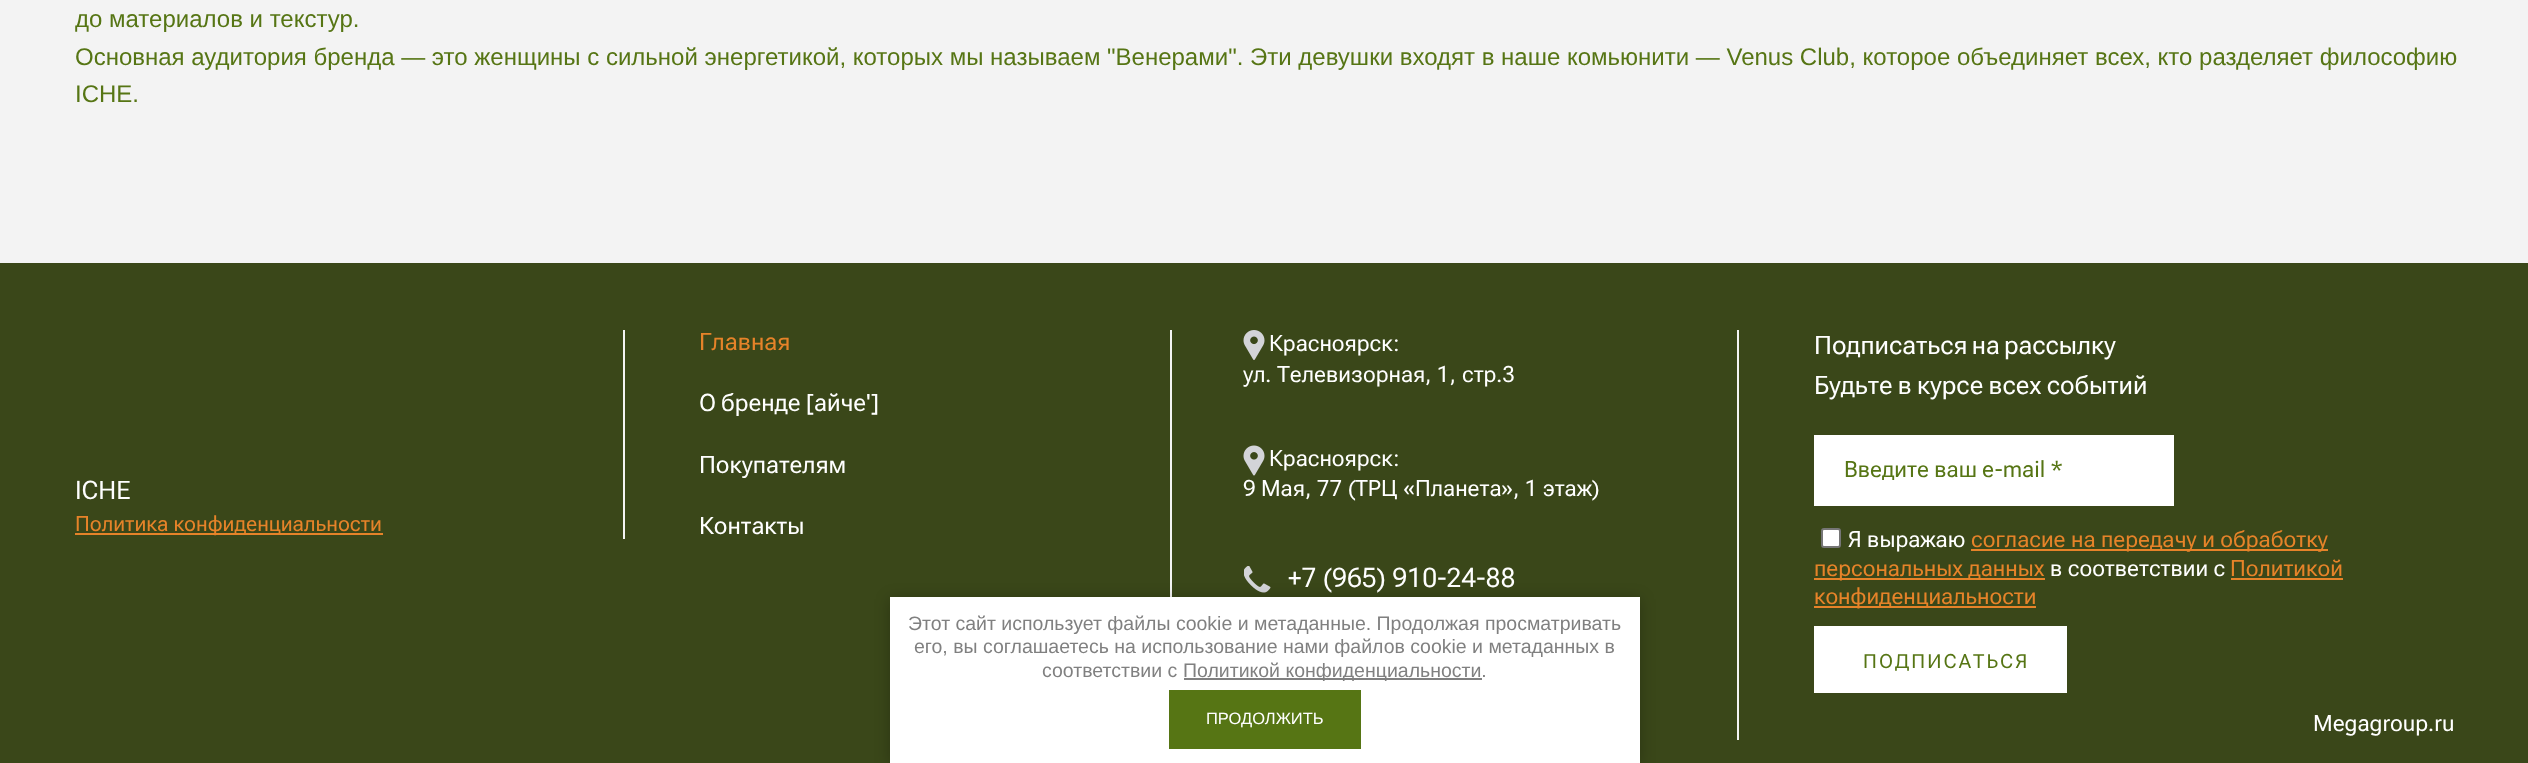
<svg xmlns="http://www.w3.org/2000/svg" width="2528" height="763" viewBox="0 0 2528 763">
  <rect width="100%" height="100%" fill="rgb(243,243,243)"/>
  <g font-family="Liberation Sans" font-size="24" fill="rgb(86,117,20)">
    <text>
      <tspan x="75" y="27">до материалов и текстур.</tspan>
      <tspan x="75" y="65">Основная аудитория бренда — это женщины с сильной энергетикой, которых мы называем "Венерами". Эти девушки входят в наше комьюнити — Venus Club, которое объединяет всех, кто разделяет философию</tspan>
      <tspan x="75" y="102">ICHE.</tspan>
    </text>
  </g>
  <rect x="0" y="263" width="2528" height="500" fill="rgb(58,71,25)"/>
  <text x="75" y="499" font-family="Roboto Flex" font-size="25.5" fill="rgb(255,255,255)">ICHE</text>
  <rect x="75" y="533" width="308" height="2" fill="rgb(230,131,41)"/>
  <text x="75" y="531" font-family="'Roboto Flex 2'" font-size="21" fill="rgb(230,131,41)">Политика конфиденциальности</text>
  <rect x="623" y="330" width="2" height="209" fill="rgb(243,243,243)"/>
  <text x="699" y="350" font-family="'Roboto Flex 2'" font-size="24" fill="rgb(230,131,41)">Главная</text>
  <text x="699" y="411" word-spacing="-1" font-family="'Roboto Flex 2'" font-size="24" fill="rgb(255,255,255)">О бренде</text>
  <text x="806" y="411" font-family="'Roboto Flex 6'" font-size="24" fill="rgb(255,255,255)">[</text>
  <text x="814" y="411" font-family="'Roboto Flex 2'" font-size="24" fill="rgb(255,255,255)">айче</text>
  <text x="866" y="411" font-family="'Roboto Flex 6'" font-size="24" fill="rgb(255,255,255)">']</text>
  <g font-family="'Roboto Flex 2'" font-size="24" fill="rgb(255,255,255)">
    <text x="699" y="473">Покупателям</text>
    <text x="699" y="534">Контакты</text>
  </g>
  <rect x="1170" y="330" width="2" height="267" fill="rgb(243,243,243)"/>
  <image x="1243" y="330" width="22" height="30" href="pic1.png"/>
  <text x="1269" y="351" font-family="'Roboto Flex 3'" font-size="22.5" fill="rgb(255,255,255)">Красноярск</text>
  <text x="1393" y="351" font-family="'Roboto Flex 2'" font-size="22.5" fill="rgb(255,255,255)">:</text>
  <text x="1243" y="382" font-family="'Roboto Flex 3'" font-size="22.5" fill="rgb(255,255,255)">ул</text>
  <text x="1265" y="382" font-family="'Roboto Flex 2'" font-size="22.5" fill="rgb(255,255,255)">.</text>
  <text x="1277" y="382" font-family="'Roboto Flex 3'" font-size="22.5" fill="rgb(255,255,255)">Телевизорная</text>
  <text x="1425" y="382" font-family="'Roboto Flex 2'" font-size="22.5" fill="rgb(255,255,255)">, 1,</text>
  <text x="1462" y="382" font-family="'Roboto Flex 3'" font-size="22.5" fill="rgb(255,255,255)">стр</text>
  <text x="1496" y="382" font-family="'Roboto Flex 2'" font-size="22.5" fill="rgb(255,255,255)">.3</text>
  <image x="1243" y="445" width="22" height="31" href="pic2.png"/>
  <text x="1269" y="466" font-family="'Roboto Flex 3'" font-size="22.5" fill="rgb(255,255,255)">Красноярск</text>
  <g font-family="'Roboto Flex 2'" font-size="22.5" fill="rgb(255,255,255)">
    <text x="1393" y="466">:</text>
    <text x="1243" y="496">9</text>
  </g>
  <text x="1261" y="496" font-family="'Roboto Flex 3'" font-size="22.5" fill="rgb(255,255,255)">Мая</text>
  <text x="1305" y="496" font-family="'Roboto Flex 2'" font-size="22.5" fill="rgb(255,255,255)">, 77 (</text>
  <text x="1355" y="496" font-family="'Roboto Flex 3'" font-size="22.5" fill="rgb(255,255,255)">ТРЦ</text>
  <text x="1403" y="496" font-family="'Roboto Flex 2'" font-size="22.5" fill="rgb(255,255,255)">«</text>
  <text x="1415" y="496" font-family="'Roboto Flex 3'" font-size="22.5" fill="rgb(255,255,255)">Планета</text>
  <text x="1501" y="496" font-family="'Roboto Flex 2'" font-size="22.5" fill="rgb(255,255,255)">», 1</text>
  <text x="1543" y="496" font-family="'Roboto Flex 3'" font-size="22.5" fill="rgb(255,255,255)">этаж</text>
  <text x="1592" y="496" font-family="'Roboto Flex 2'" font-size="22.5" fill="rgb(255,255,255)">)</text>
  <image x="1244" y="566" width="27" height="27" href="pic3.png"/>
  <text x="1288" y="587" font-family="'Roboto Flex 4'" font-size="27" fill="rgb(255,255,255)">+7 (965) 910-24-88</text>
  <rect x="1737" y="330" width="2" height="410" fill="rgb(243,243,243)"/>
  <g font-family="'Roboto Flex 2'" font-size="25.5" fill="rgb(255,255,255)">
    <text>
      <tspan x="1814" y="354" word-spacing="-2">Подписаться на рассылку</tspan>
      <tspan x="1814" y="394" word-spacing="-1">Будьте в курсе всех событий</tspan>
    </text>
  </g>
  <rect x="1814" y="435" width="360" height="71" fill="rgb(255,255,255)"/>
  <text x="1844" y="477" font-family="'Roboto Flex 3'" font-size="22.5" fill="rgb(86,117,20)">Введите ваш</text>
  <text x="1982" y="477" font-family="'Roboto Flex 2'" font-size="22.5" fill="rgb(86,117,20)">e-mail *</text>
  <rect x="1822" y="529" width="18" height="18" rx="2" fill="rgb(255,255,255)" stroke="rgb(118,118,118)" stroke-width="2"/>
  <text x="1848" y="547" font-family="'Roboto Flex 3'" font-size="22.5" fill="rgb(255,255,255)">Я выражаю</text>
  <rect x="1971" y="549" width="357" height="2" fill="rgb(230,131,41)"/>
  <text x="1971" y="547" font-family="'Roboto Flex 3'" font-size="22.5" fill="rgb(230,131,41)">согласие на передачу и обработку</text>
  <rect x="1814" y="578" width="231" height="2" fill="rgb(230,131,41)"/>
  <text x="1814" y="576" font-family="'Roboto Flex 3'" font-size="22.5" fill="rgb(230,131,41)">персональных данных</text>
  <text x="2050" y="576" font-family="'Roboto Flex 3'" font-size="22.5" fill="rgb(255,255,255)">в соответствии с</text>
  <text x="2230" y="576" font-family="'Roboto Flex 3'" font-size="22.5" fill="rgb(230,131,41)">Политикой</text>
  <rect x="2231" y="578" width="112" height="2" fill="rgb(230,131,41)"/>
  <rect x="1814" y="606" width="222" height="2" fill="rgb(230,131,41)"/>
  <text x="1814" y="604" font-family="'Roboto Flex 3'" font-size="22.5" fill="rgb(230,131,41)">конфиденциальности</text>
  <rect x="1814" y="626" width="253" height="67" fill="rgb(255,255,255)"/>
  <text x="1863" y="668" font-family="'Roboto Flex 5'" font-size="19.5" letter-spacing="2.1" fill="rgb(86,117,20)">ПОДПИСАТЬСЯ</text>
  <text x="2313" y="731" font-family="'Roboto Flex 2'" font-size="22.5" fill="rgb(255,255,255)">Megagroup.ru</text>
  <rect x="890" y="599" width="750" height="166" fill="rgba(0,0,0,0.25)" filter="blur(7.5px)"/>
  <rect x="890" y="597" width="750" height="166" fill="rgb(255,255,255)"/>
  <g font-family="Liberation Sans" font-size="19.5" fill="rgb(128,128,128)">
    <text x="908" y="630">Этот сайт использует файлы cookie и метаданные. Продолжая просматривать</text>
    <text x="914" y="653">его, вы соглашаетесь на использование нами файлов cookie и метаданных в</text>
    <text x="1042" y="677">соответствии с</text>
  </g>
  <rect x="1184" y="678" width="298" height="2" fill="rgb(128,128,128)"/>
  <text x="1183" y="677" font-family="Liberation Sans" font-size="19.5" fill="rgb(128,128,128)">Политикой конфиденциальности.</text>
  <rect x="1169" y="690" width="192" height="59" fill="rgb(86,117,20)"/>
  <text x="1206" y="724" font-family="Liberation Sans" font-size="16.5" fill="rgb(255,255,255)">ПРОДОЛЖИТЬ</text>
</svg>
